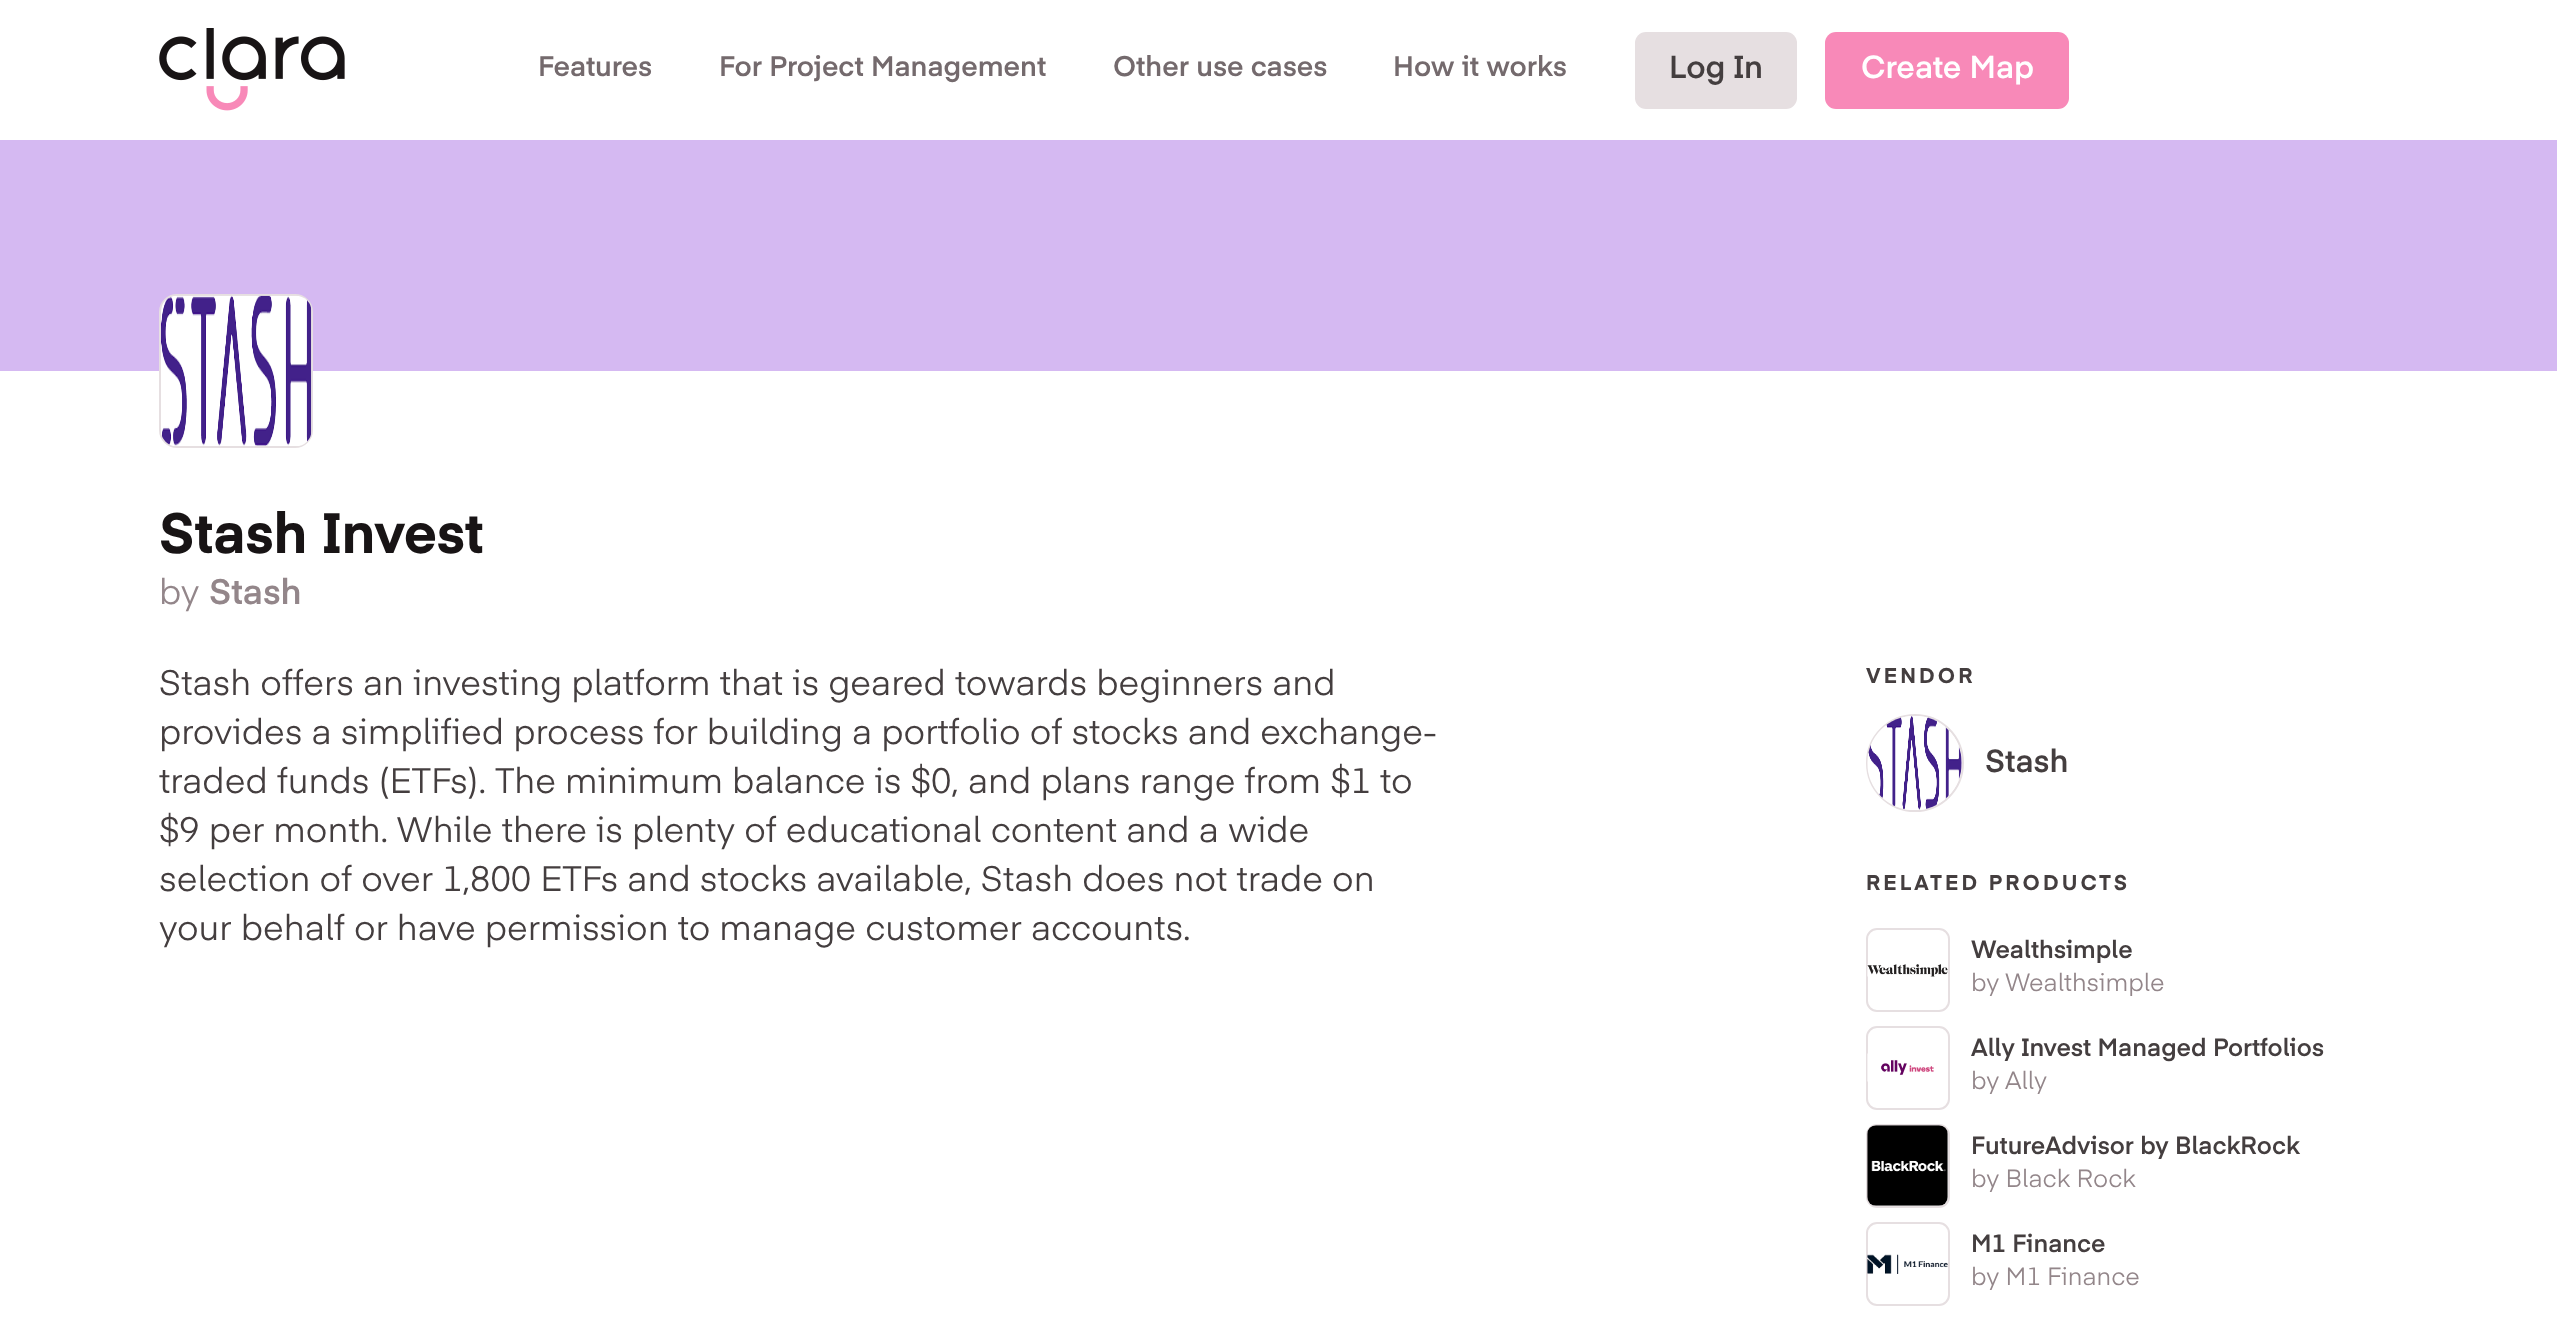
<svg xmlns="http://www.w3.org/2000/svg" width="2557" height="1319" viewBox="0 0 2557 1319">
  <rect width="100%" height="100%" fill="rgb(255,255,255)"/>
  <image x="159" y="28" width="186" height="83" href="pic1.png"/>
  <g font-family="'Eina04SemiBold'" font-size="28" font-weight="600" fill="rgb(116,106,109)">
    <text x="538" y="76">Features</text>
    <text x="719" y="76">For Project Management</text>
    <text x="1113" y="76">Other use cases</text>
    <text x="1393" y="76">How it works</text>
  </g>
  <rect x="1635" y="32" width="162" height="77" rx="11" fill="rgb(230,223,225)"/>
  <text x="1669" y="78" font-family="'Eina04SemiBold'" font-size="31.5" font-weight="600" fill="rgb(68,62,63)">Log In</text>
  <rect x="1825" y="32" width="244" height="77" rx="11" fill="rgb(248,137,184)"/>
  <text x="1861" y="78" font-family="'Eina04SemiBold'" font-size="31.5" font-weight="600" fill="rgb(255,255,255)">Create Map</text>
  <rect x="0" y="140" width="2557" height="231" fill="rgb(213,185,242)"/>
  <rect x="160" y="295" width="152" height="152" rx="17" fill="none" stroke="rgb(230,223,225)" stroke-width="2"/>
  <image x="161" y="295" width="151" height="151" href="pic2.png"/>
  <text x="159" y="553" font-family="'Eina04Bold'" font-size="56" font-weight="bold" fill="rgb(24,20,21)">Stash Invest</text>
  <text x="159" y="604" font-family="'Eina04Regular'" font-size="35" fill="rgb(147,134,138)">by</text>
  <text x="209" y="604" font-family="'Eina04SemiBold'" font-size="35" font-weight="600" fill="rgb(147,134,138)">Stash</text>
  <g font-family="'Eina04Regular'" font-size="35" fill="rgb(68,62,63)">
    <text>
      <tspan x="159" y="695">Stash offers an investing platform that is geared towards beginners and</tspan>
      <tspan x="159" y="744">provides a simplified process for building a portfolio of stocks and exchange-</tspan>
      <tspan x="159" y="793">traded funds (ETFs). The minimum balance is $0, and plans range from $1 to</tspan>
      <tspan x="159" y="842">$9 per month. While there is plenty of educational content and a wide</tspan>
      <tspan x="159" y="891">selection of over 1,800 ETFs and stocks available, Stash does not trade on</tspan>
      <tspan x="159" y="940">your behalf or have permission to manage customer accounts.</tspan>
    </text>
  </g>
  <text x="1866" y="683" font-family="'Eina04Bold'" font-size="21" font-weight="bold" letter-spacing="3.1" fill="rgb(68,62,63)">VENDOR</text>
  <circle cx="1915" cy="763" r="48" fill="none" stroke="rgb(230,223,225)" stroke-width="2"/>
  <image x="1867" y="716" width="95" height="94" href="pic3.png"/>
  <text x="1985" y="772" font-family="'Eina04SemiBold'" font-size="31.5" font-weight="600" fill="rgb(68,62,63)">Stash</text>
  <text x="1866" y="890" font-family="'Eina04Bold'" font-size="21" font-weight="bold" letter-spacing="3.1" fill="rgb(68,62,63)">RELATED PRODUCTS</text>
  <rect x="1867" y="929" width="82" height="82" rx="10" fill="none" stroke="rgb(230,223,225)" stroke-width="2"/>
  <image x="1867" y="964" width="81" height="13" href="pic4.png"/>
  <text x="1971" y="958" font-family="'Eina04SemiBold'" font-size="24.5" font-weight="600" fill="rgb(68,62,63)">Wealthsimple</text>
  <g font-family="'Eina04Regular'" font-size="24.5" fill="rgb(147,134,138)">
    <text x="1971" y="991">by</text>
    <text x="2005" y="991">Wealthsimple</text>
  </g>
  <rect x="1867" y="1027" width="82" height="82" rx="10" fill="none" stroke="rgb(230,223,225)" stroke-width="2"/>
  <image x="1867" y="1053" width="67" height="29" href="pic5.png"/>
  <text x="1971" y="1056" font-family="'Eina04SemiBold'" font-size="24.5" font-weight="600" fill="rgb(68,62,63)">Ally Invest Managed Portfolios</text>
  <g font-family="'Eina04Regular'" font-size="24.5" fill="rgb(147,134,138)">
    <text x="1971" y="1089">by</text>
    <text x="2005" y="1089">Ally</text>
  </g>
  <rect x="1867" y="1125" width="82" height="82" rx="10" fill="none" stroke="rgb(230,223,225)" stroke-width="2"/>
  <image x="1867" y="1125" width="81" height="81" href="pic6.png"/>
  <text x="1971" y="1154" font-family="'Eina04SemiBold'" font-size="24.5" font-weight="600" fill="rgb(68,62,63)">FutureAdvisor by BlackRock</text>
  <text x="1971" y="1187" font-family="'Eina04Regular'" font-size="24.5" fill="rgb(147,134,138)">by Black Rock</text>
  <rect x="1867" y="1223" width="82" height="82" rx="10" fill="none" stroke="rgb(230,223,225)" stroke-width="2"/>
  <image x="1867" y="1254" width="81" height="20" href="pic7.png"/>
  <text x="1971" y="1252" font-family="'Eina04SemiBold'" font-size="24.5" font-weight="600" fill="rgb(68,62,63)">M1 Finance</text>
  <text x="1971" y="1285" font-family="'Eina04Regular'" font-size="24.5" fill="rgb(147,134,138)">by M1 Finance</text>
</svg>
